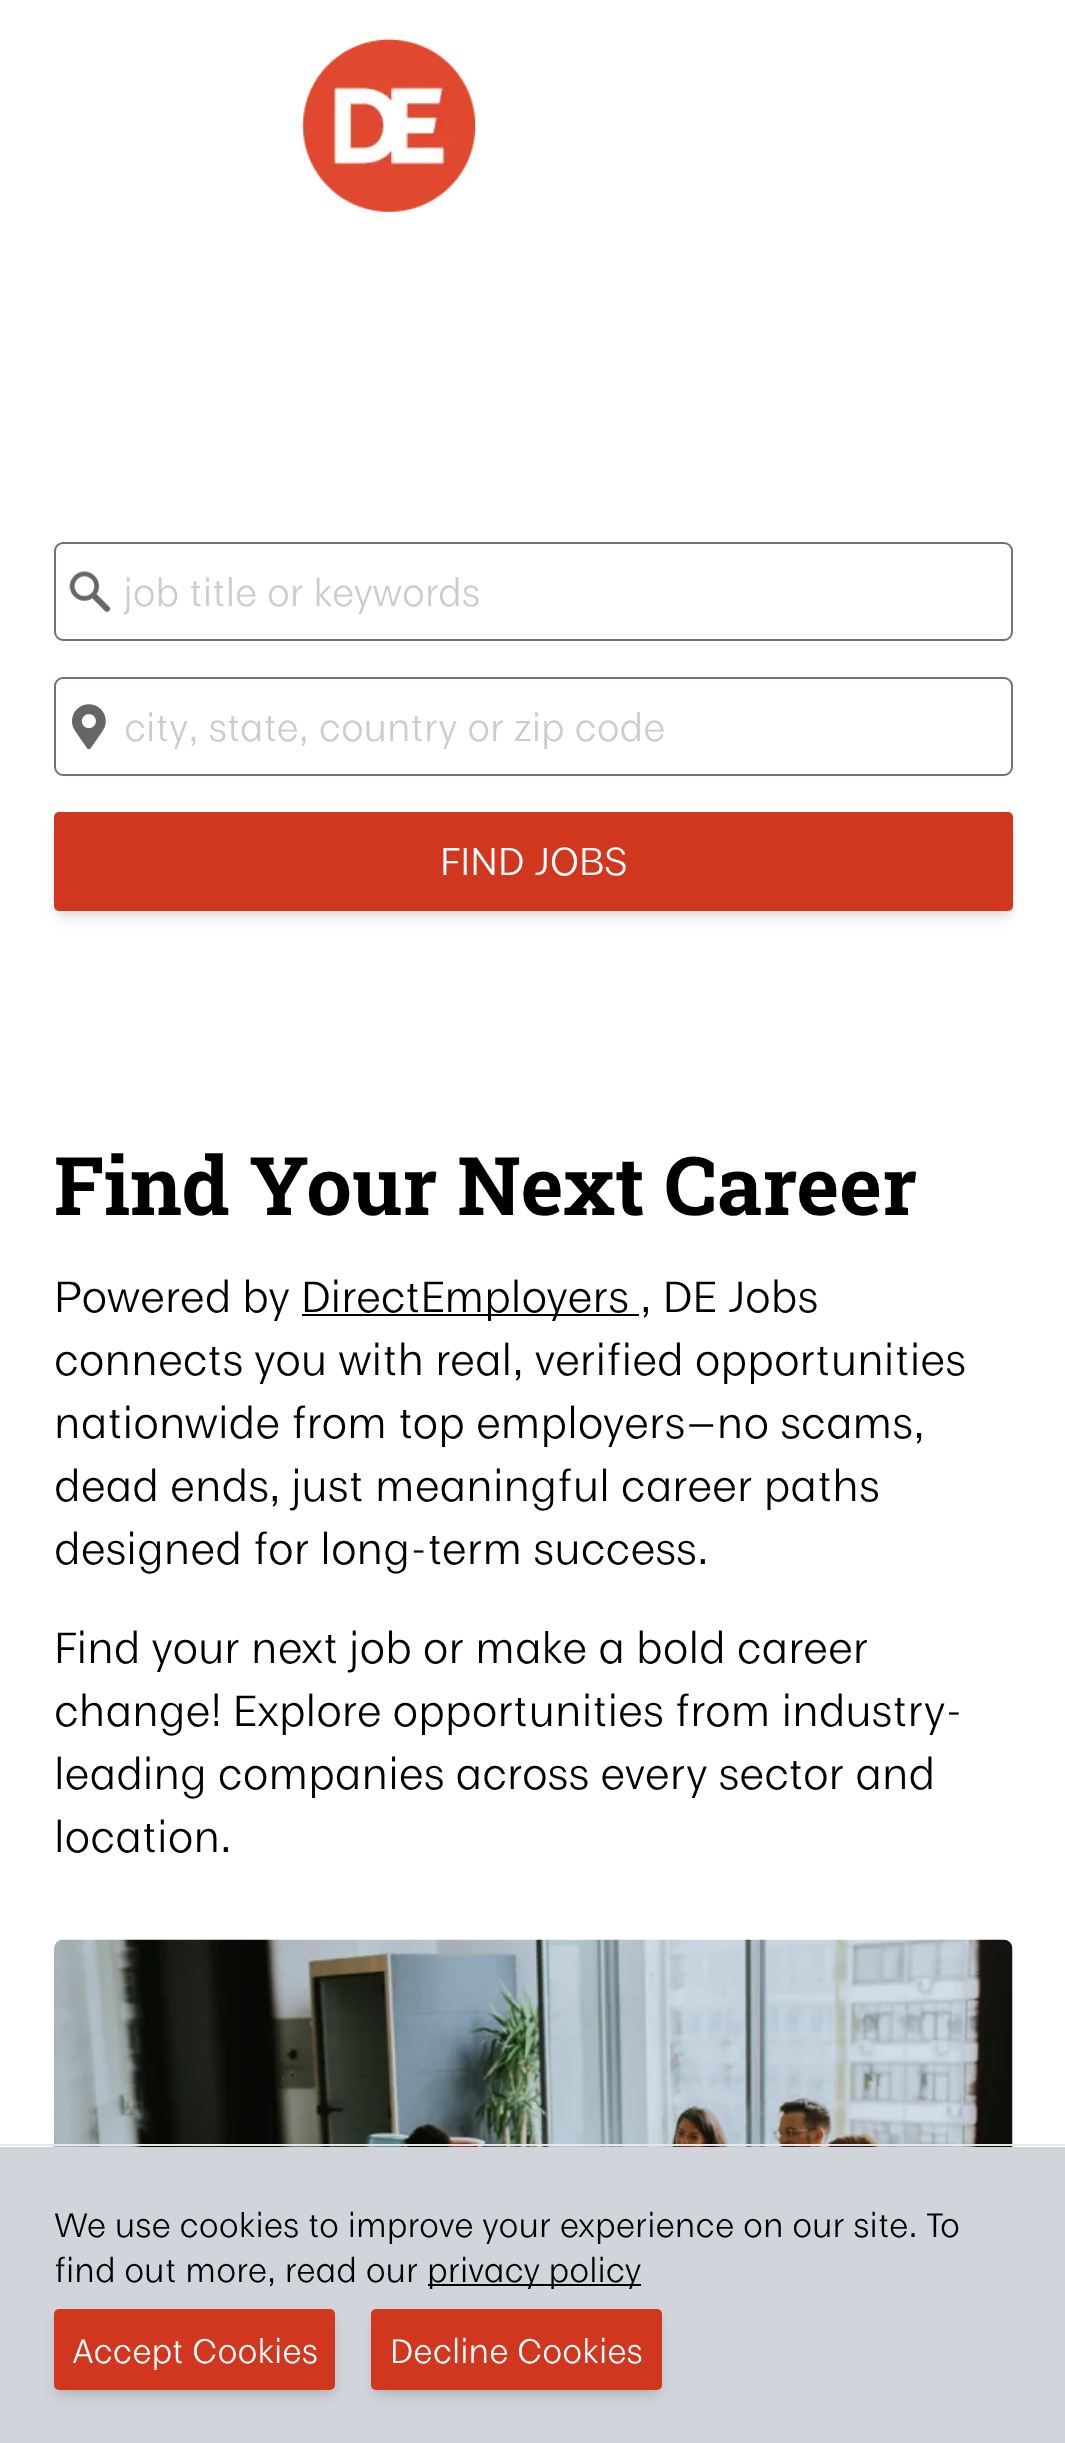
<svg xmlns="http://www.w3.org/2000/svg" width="1065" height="2443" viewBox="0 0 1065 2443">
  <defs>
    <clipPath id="clip1"><rect x="124" y="565" width="866" height="56"/></clipPath>
  </defs>
  <rect width="100%" height="100%" fill="rgb(255,255,255)"/>
  <image x="301" y="38" width="175" height="174" href="pic1.png"/>
  <image x="69" y="571" width="42" height="41" href="pic2.png"/>
  <rect x="55" y="543" width="957" height="97" rx="8" fill="none" stroke="rgb(107,114,128)" stroke-width="2"/>
  <g clip-path="url(#clip1)">
    <text x="124" y="606" font-family="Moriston" font-size="36" fill="rgb(204,204,204)">job title or keywords</text>
  </g>
  <rect x="55" y="678" width="957" height="97" rx="8" fill="none" stroke="rgb(107,114,128)" stroke-width="2"/>
  <image x="72" y="704" width="34" height="46" href="pic3.png"/>
  <text x="124" y="741" font-family="Moriston" font-size="36" fill="rgb(204,204,204)">city, state, country or zip code</text>
  <rect x="59" y="821" width="949" height="90" fill="rgba(0,0,0,0.1)" filter="blur(4.5px)"/>
  <rect x="56" y="824" width="954" height="94" rx="2" fill="rgba(0,0,0,0.1)" filter="blur(7px)"/>
  <rect x="54" y="812" width="959" height="99" rx="5" fill="rgb(209,54,30)"/>
  <text x="440" y="875" font-family="Moriston" font-size="36" fill="rgb(255,255,255)">FIND JOBS</text>
  <text x="54" y="1215" font-family="Roboto Slab" font-size="81" font-weight="bold" fill="rgb(0,0,0)">Find Your Next Career</text>
  <text x="54" y="1312" font-family="Moriston" font-size="40.5" fill="rgb(0,0,0)">Powered by</text>
  <rect x="302" y="1314" width="337" height="2" fill="rgb(0,0,0)"/>
  <g font-family="Moriston" font-size="40.5" fill="rgb(0,0,0)">
    <text x="301" y="1312">DirectEmployers , DE Jobs</text>
    <text>
      <tspan x="54" y="1375">connects you with real, verified opportunities</tspan>
      <tspan x="54" y="1438">nationwide from top employers—no scams,</tspan>
      <tspan x="54" y="1501">dead ends, just meaningful career paths</tspan>
      <tspan x="54" y="1564">designed for long-term success.</tspan>
    </text>
    <text>
      <tspan x="54" y="1663">Find your next job or make a bold career</tspan>
      <tspan x="54" y="1726">change! Explore opportunities from industry-</tspan>
      <tspan x="54" y="1789">leading companies across every sector and</tspan>
      <tspan x="54" y="1852">location.</tspan>
    </text>
  </g>
  <image x="54" y="1939" width="959" height="208" href="pic4.png"/>
  <rect x="0" y="2147" width="1065" height="296" fill="rgb(209,213,219)"/>
  <rect x="0" y="2144" width="1065" height="2" fill="rgb(229,231,235)"/>
  <g font-family="Moriston" font-size="31.5" fill="rgb(0,0,0)">
    <text>
      <tspan x="54" y="2237">We use cookies to improve your experience on our site. To</tspan>
      <tspan x="54" y="2282">find out more, read our</tspan>
    </text>
  </g>
  <rect x="428" y="2284" width="213" height="2" fill="rgb(0,0,0)"/>
  <text x="427" y="2282" font-family="Moriston" font-size="31.5" fill="rgb(0,0,0)">privacy policy</text>
  <rect x="59" y="2318" width="272" height="72" fill="rgba(0,0,0,0.1)" filter="blur(4.5px)"/>
  <rect x="56" y="2320" width="277" height="76" rx="2" fill="rgba(0,0,0,0.1)" filter="blur(7px)"/>
  <rect x="54" y="2309" width="281" height="81" rx="5" fill="rgb(209,54,30)"/>
  <text x="72" y="2363" font-family="Moriston" font-size="31.5" fill="rgb(255,255,255)">Accept Cookies</text>
  <rect x="376" y="2318" width="281" height="72" fill="rgba(0,0,0,0.1)" filter="blur(4.5px)"/>
  <rect x="374" y="2320" width="285" height="76" rx="2" fill="rgba(0,0,0,0.1)" filter="blur(7px)"/>
  <rect x="371" y="2309" width="291" height="81" rx="5" fill="rgb(209,54,30)"/>
  <text x="390" y="2363" font-family="Moriston" font-size="31.5" fill="rgb(255,255,255)">Decline Cookies</text>
</svg>
